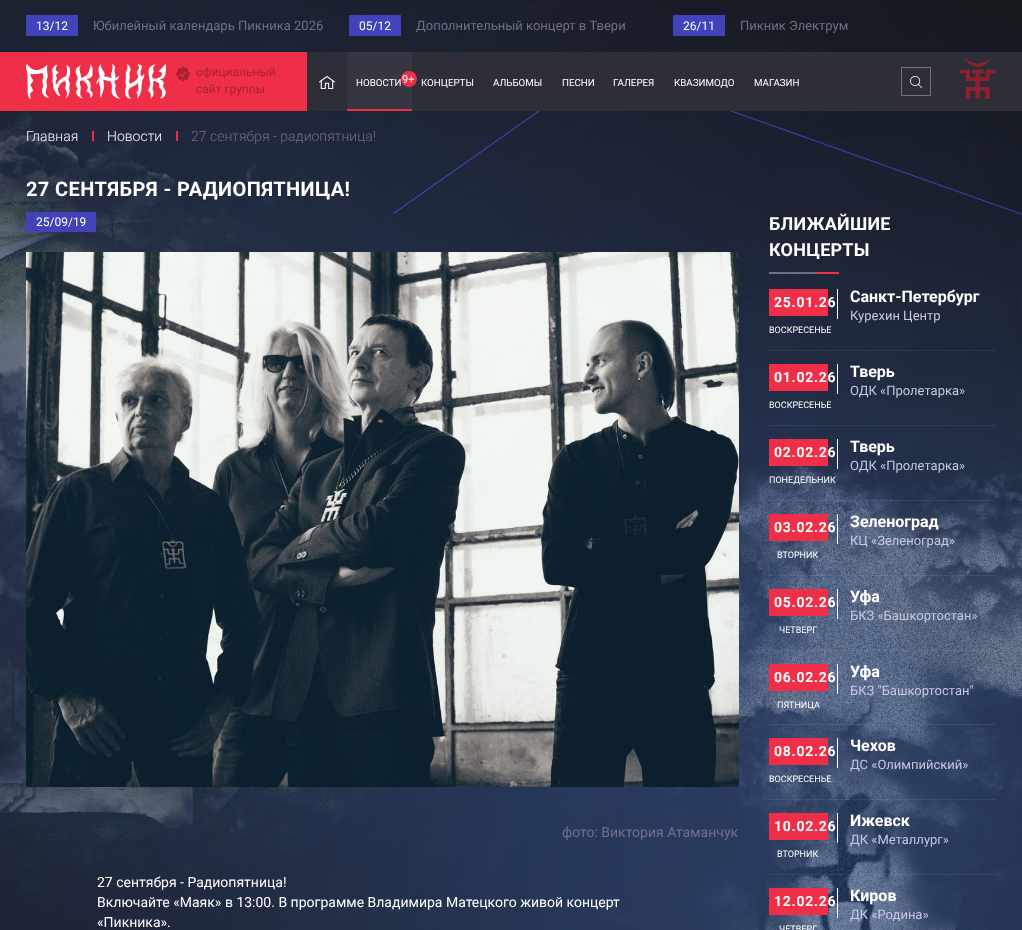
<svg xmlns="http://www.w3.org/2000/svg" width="1022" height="930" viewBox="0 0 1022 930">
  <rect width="100%" height="100%" fill="rgb(19,19,20)"/>
  <image x="0" y="0" width="1022" height="930" href="pic1.png"/>
  <rect x="26" y="15" width="52" height="21" fill="rgb(66,66,186)"/>
  <text x="36" y="30" font-family="Roboto" font-size="12" fill="rgb(255,255,255)">13/12</text>
  <text x="93" y="30" font-family="Roboto" font-size="13" fill="rgb(112,112,138)">Юбилейный календарь Пикника 2026</text>
  <rect x="349" y="15" width="52" height="21" fill="rgb(66,66,186)"/>
  <text x="359" y="30" font-family="Roboto" font-size="12" fill="rgb(255,255,255)">05/12</text>
  <text x="416" y="30" font-family="Roboto" font-size="13" fill="rgb(112,112,138)">Дополнительный концерт в Твери</text>
  <rect x="673" y="15" width="52" height="21" fill="rgb(66,66,186)"/>
  <text x="683" y="30" font-family="Roboto" font-size="12" fill="rgb(255,255,255)">26/11</text>
  <text x="740" y="30" font-family="Roboto" font-size="13" fill="rgb(112,112,138)">Пикник Электрум</text>
  <rect x="0" y="52" width="307" height="59" fill="rgb(239,47,72)"/>
  <rect x="307" y="52" width="715" height="59" fill="rgb(46,46,57)"/>
  <image x="26" y="64" width="140" height="35" href="pic2.png"/>
  <image x="176" y="67" width="14" height="14" href="pic3.png"/>
  <g font-family="Roboto" font-size="12" fill="rgb(168,34,52)">
    <text>
      <tspan x="196" y="76">официальный</tspan>
      <tspan x="196" y="93">сайт группы</tspan>
    </text>
  </g>
  <image x="319" y="76" width="16" height="13" href="pic4.png"/>
  <rect x="347" y="52" width="65" height="57" fill="rgb(54,54,66)"/>
  <rect x="347" y="109" width="65" height="2" fill="rgb(239,47,72)"/>
  <text x="356" y="86" font-family="Roboto" font-size="9.75" fill="rgb(255,255,255)">НОВОСТИ</text>
  <circle cx="409" cy="79" r="8" fill="rgb(239,47,72)"/>
  <text x="402" y="83" font-family="Roboto" font-size="11" fill="rgb(255,255,255)">9+</text>
  <g font-family="Roboto" font-size="9.75" fill="rgb(255,255,255)">
    <text x="421" y="86">КОНЦЕРТЫ</text>
    <text x="493" y="86">АЛЬБОМЫ</text>
    <text x="562" y="86">ПЕСНИ</text>
    <text x="613" y="86">ГАЛЕРЕЯ</text>
    <text x="674" y="86">КВАЗИМОДО</text>
    <text x="754" y="86">МАГАЗИН</text>
  </g>
  <image x="910" y="76" width="12" height="12" href="pic5.png"/>
  <rect x="901.5" y="67.5" width="29" height="28" fill="none" stroke="rgb(112,112,138)"/>
  <image x="960" y="58" width="36" height="41" href="pic6.png"/>
  <text x="26" y="141" font-family="Roboto" font-size="14" font-weight="300" fill="rgb(255,255,255)">Главная</text>
  <rect x="92" y="131" width="2" height="10" fill="rgb(239,47,72)"/>
  <text x="107" y="141" font-family="Roboto" font-size="14" font-weight="300" fill="rgb(255,255,255)">Новости</text>
  <rect x="176" y="131" width="2" height="10" fill="rgb(239,47,72)"/>
  <text x="191" y="141" font-family="Roboto" font-size="14" font-weight="300" fill="rgb(112,112,138)">27 сентября - радиопятница!</text>
  <text x="26" y="196" font-family="Roboto" font-size="20" font-weight="bold" letter-spacing="0.4" fill="rgb(255,255,255)">27 СЕНТЯБРЯ - РАДИОПЯТНИЦА!</text>
  <rect x="26" y="212" width="70" height="20" fill="rgb(66,66,186)"/>
  <text x="36" y="226" font-family="Roboto" font-size="12" fill="rgb(255,255,255)">25/09/19</text>
  <image x="26" y="252" width="713" height="535" href="pic7.png"/>
  <text x="562" y="837" font-family="Roboto" font-size="14" fill="rgb(112,112,138)">фото: Виктория Атаманчук</text>
  <g font-family="Roboto" font-size="14" fill="rgb(255,255,255)">
    <text>
      <tspan x="97" y="887">27 сентября - Радиопятница!</tspan>
      <tspan x="97" y="907">Включайте «Маяк» в 13:00. В программе Владимира Матецкого живой концерт</tspan>
      <tspan x="97" y="927">«Пикника».</tspan>
    </text>
  </g>
  <g font-family="Roboto" font-size="18" font-weight="bold" letter-spacing="0.25" fill="rgb(255,255,255)">
    <text>
      <tspan x="769" y="230">БЛИЖАЙШИЕ</tspan>
      <tspan x="769" y="256">КОНЦЕРТЫ</tspan>
    </text>
  </g>
  <image x="769" y="272" width="70" height="2" href="pic8.png"/>
  <rect x="769" y="350" width="227" height="1" fill="rgba(255,255,255,0.07)"/>
  <rect x="769" y="289" width="59" height="27" fill="rgb(239,47,72)"/>
  <text x="774" y="307" font-family="Roboto" font-size="14" font-weight="bold" letter-spacing="0.75" fill="rgb(255,255,255)">25.01.26</text>
  <text x="769" y="333" font-family="Roboto" font-size="9" fill="rgb(255,255,255)">ВОСКРЕСЕНЬЕ</text>
  <rect x="837" y="289" width="1" height="30" fill="rgb(255,255,255)"/>
  <text x="850" y="302" font-family="Roboto" font-size="16" font-weight="bold" fill="rgb(255,255,255)">Санкт-Петербург</text>
  <text x="850" y="320" font-family="Roboto" font-size="13" fill="rgb(200,200,226)">Курехин Центр</text>
  <rect x="769" y="425" width="227" height="1" fill="rgba(255,255,255,0.07)"/>
  <rect x="769" y="364" width="59" height="27" fill="rgb(239,47,72)"/>
  <text x="774" y="382" font-family="Roboto" font-size="14" font-weight="bold" letter-spacing="0.75" fill="rgb(255,255,255)">01.02.26</text>
  <text x="769" y="408" font-family="Roboto" font-size="9" fill="rgb(255,255,255)">ВОСКРЕСЕНЬЕ</text>
  <rect x="837" y="364" width="1" height="30" fill="rgb(255,255,255)"/>
  <text x="850" y="377" font-family="Roboto" font-size="16" font-weight="bold" fill="rgb(255,255,255)">Тверь</text>
  <text x="850" y="395" font-family="Roboto" font-size="13" fill="rgb(200,200,226)">ОДК «Пролетарка»</text>
  <rect x="769" y="500" width="227" height="1" fill="rgba(255,255,255,0.07)"/>
  <rect x="769" y="439" width="59" height="27" fill="rgb(239,47,72)"/>
  <text x="774" y="457" font-family="Roboto" font-size="14" font-weight="bold" letter-spacing="0.75" fill="rgb(255,255,255)">02.02.26</text>
  <text x="769" y="483" font-family="Roboto" font-size="9" fill="rgb(255,255,255)">ПОНЕДЕЛЬНИК</text>
  <rect x="837" y="439" width="1" height="30" fill="rgb(255,255,255)"/>
  <text x="850" y="452" font-family="Roboto" font-size="16" font-weight="bold" fill="rgb(255,255,255)">Тверь</text>
  <text x="850" y="470" font-family="Roboto" font-size="13" fill="rgb(200,200,226)">ОДК «Пролетарка»</text>
  <rect x="769" y="575" width="227" height="1" fill="rgba(255,255,255,0.07)"/>
  <rect x="769" y="514" width="59" height="27" fill="rgb(239,47,72)"/>
  <text x="774" y="532" font-family="Roboto" font-size="14" font-weight="bold" letter-spacing="0.75" fill="rgb(255,255,255)">03.02.26</text>
  <text x="777" y="558" font-family="Roboto" font-size="9" fill="rgb(255,255,255)">ВТОРНИК</text>
  <rect x="837" y="514" width="1" height="30" fill="rgb(255,255,255)"/>
  <text x="850" y="527" font-family="Roboto" font-size="16" font-weight="bold" fill="rgb(255,255,255)">Зеленоград</text>
  <text x="850" y="545" font-family="Roboto" font-size="13" fill="rgb(200,200,226)">КЦ «Зеленоград»</text>
  <rect x="769" y="650" width="227" height="1" fill="rgba(255,255,255,0.07)"/>
  <rect x="769" y="589" width="59" height="27" fill="rgb(239,47,72)"/>
  <text x="774" y="607" font-family="Roboto" font-size="14" font-weight="bold" letter-spacing="0.75" fill="rgb(255,255,255)">05.02.26</text>
  <text x="779" y="633" font-family="Roboto" font-size="9" fill="rgb(255,255,255)">ЧЕТВЕРГ</text>
  <rect x="837" y="589" width="1" height="30" fill="rgb(255,255,255)"/>
  <text x="850" y="602" font-family="Roboto" font-size="16" font-weight="bold" fill="rgb(255,255,255)">Уфа</text>
  <text x="850" y="620" font-family="Roboto" font-size="13" fill="rgb(200,200,226)">БКЗ «Башкортостан»</text>
  <rect x="769" y="724" width="227" height="1" fill="rgba(255,255,255,0.07)"/>
  <rect x="769" y="664" width="59" height="27" fill="rgb(239,47,72)"/>
  <text x="774" y="682" font-family="Roboto" font-size="14" font-weight="bold" letter-spacing="0.75" fill="rgb(255,255,255)">06.02.26</text>
  <text x="777" y="708" font-family="Roboto" font-size="9" fill="rgb(255,255,255)">ПЯТНИЦА</text>
  <rect x="837" y="664" width="1" height="30" fill="rgb(255,255,255)"/>
  <text x="850" y="677" font-family="Roboto" font-size="16" font-weight="bold" fill="rgb(255,255,255)">Уфа</text>
  <text x="850" y="695" font-family="Roboto" font-size="13" fill="rgb(200,200,226)">БКЗ "Башкортостан"</text>
  <rect x="769" y="799" width="227" height="1" fill="rgba(255,255,255,0.07)"/>
  <rect x="769" y="738" width="59" height="27" fill="rgb(239,47,72)"/>
  <text x="774" y="756" font-family="Roboto" font-size="14" font-weight="bold" letter-spacing="0.75" fill="rgb(255,255,255)">08.02.26</text>
  <text x="769" y="782" font-family="Roboto" font-size="9" fill="rgb(255,255,255)">ВОСКРЕСЕНЬЕ</text>
  <rect x="837" y="738" width="1" height="30" fill="rgb(255,255,255)"/>
  <text x="850" y="751" font-family="Roboto" font-size="16" font-weight="bold" fill="rgb(255,255,255)">Чехов</text>
  <text x="850" y="769" font-family="Roboto" font-size="13" fill="rgb(200,200,226)">ДС «Олимпийский»</text>
  <rect x="769" y="874" width="227" height="1" fill="rgba(255,255,255,0.07)"/>
  <rect x="769" y="813" width="59" height="27" fill="rgb(239,47,72)"/>
  <text x="774" y="831" font-family="Roboto" font-size="14" font-weight="bold" letter-spacing="0.75" fill="rgb(255,255,255)">10.02.26</text>
  <text x="777" y="857" font-family="Roboto" font-size="9" fill="rgb(255,255,255)">ВТОРНИК</text>
  <rect x="837" y="813" width="1" height="30" fill="rgb(255,255,255)"/>
  <text x="850" y="826" font-family="Roboto" font-size="16" font-weight="bold" fill="rgb(255,255,255)">Ижевск</text>
  <text x="850" y="844" font-family="Roboto" font-size="13" fill="rgb(200,200,226)">ДК «Металлург»</text>
  <rect x="769" y="888" width="59" height="27" fill="rgb(239,47,72)"/>
  <text x="774" y="906" font-family="Roboto" font-size="14" font-weight="bold" letter-spacing="0.75" fill="rgb(255,255,255)">12.02.26</text>
  <text x="779" y="932" font-family="Roboto" font-size="9" fill="rgb(255,255,255)">ЧЕТВЕРГ</text>
  <rect x="837" y="888" width="1" height="30" fill="rgb(255,255,255)"/>
  <text x="850" y="901" font-family="Roboto" font-size="16" font-weight="bold" fill="rgb(255,255,255)">Киров</text>
  <text x="850" y="919" font-family="Roboto" font-size="13" fill="rgb(200,200,226)">ДК «Родина»</text>
</svg>
